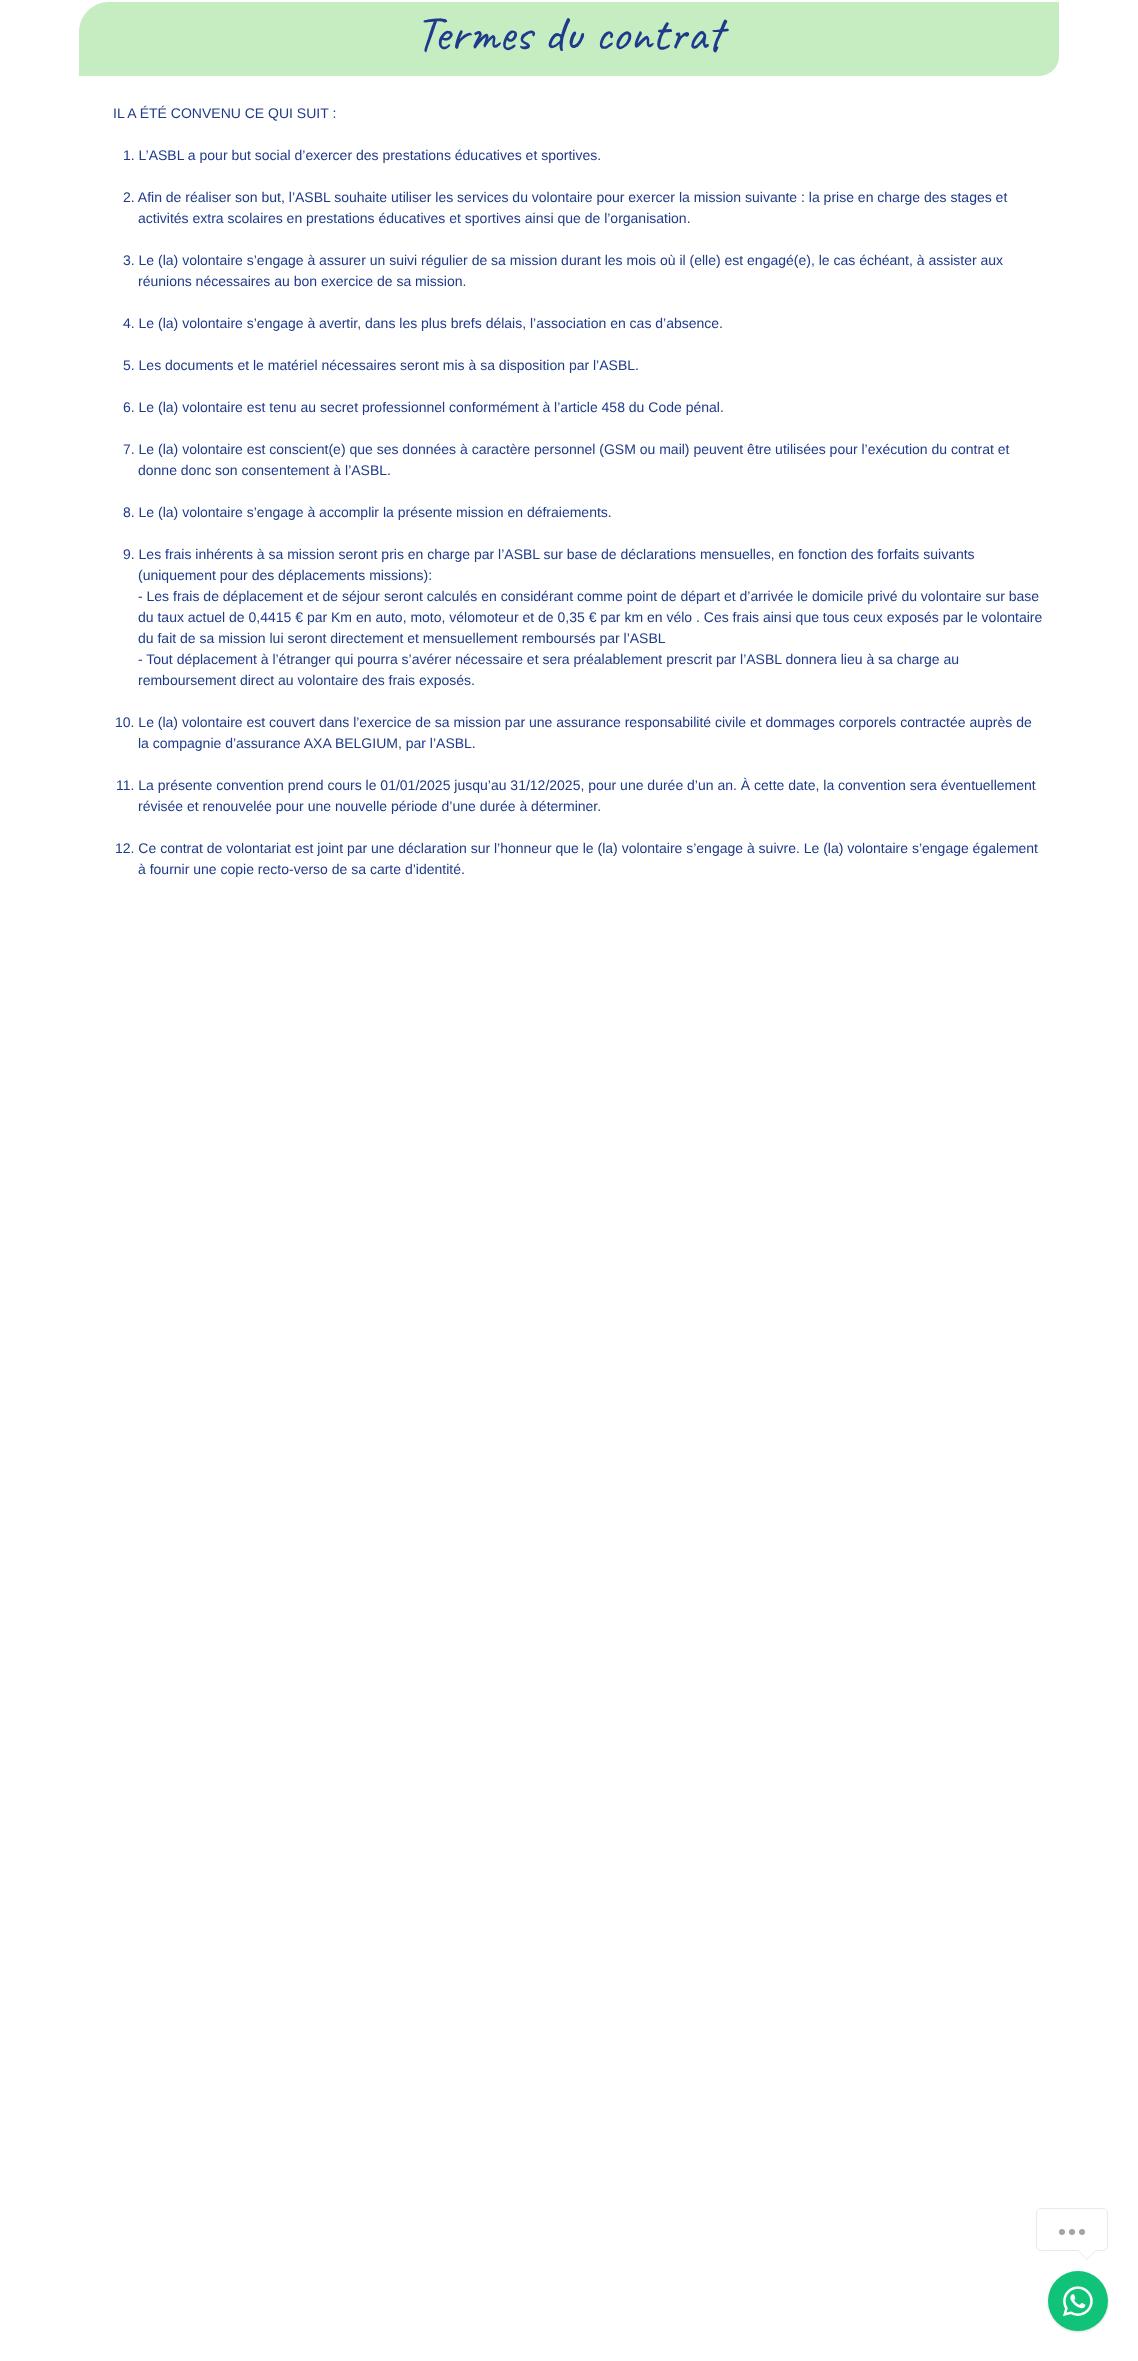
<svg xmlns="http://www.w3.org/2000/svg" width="1138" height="2361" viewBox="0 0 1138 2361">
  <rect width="100%" height="100%" fill="rgb(255,255,255)"/>
  <path d="M109 2H1059V56C1059 67 1050 76 1039 76H79V32C79 15.5 92.5 2 109 2Z" fill="rgb(198,236,194)"/>
  <text x="415" y="50" font-family="Caveat" font-size="50" fill="rgb(30,58,138)">Termes du contrat</text>
  <g font-family="Liberation Sans" font-size="14" fill="rgb(30,58,138)">
    <text x="113" y="118">IL A ÉTÉ CONVENU CE QUI SUIT :</text>
    <text x="123" y="160">1. L’ASBL a pour but social d’exercer des prestations éducatives et sportives.</text>
    <text x="123" y="202">2. Afin de réaliser son but, l’ASBL souhaite utiliser les services du volontaire pour exercer la mission suivante : la prise en charge des stages et</text>
    <text x="138" y="223">activités extra scolaires en prestations éducatives et sportives ainsi que de l’organisation.</text>
    <text x="123" y="265">3. Le (la) volontaire s’engage à assurer un suivi régulier de sa mission durant les mois où il (elle) est engagé(e), le cas échéant, à assister aux</text>
    <text x="138" y="286">réunions nécessaires au bon exercice de sa mission.</text>
    <text x="123" y="328">4. Le (la) volontaire s’engage à avertir, dans les plus brefs délais, l’association en cas d’absence.</text>
    <text x="123" y="370">5. Les documents et le matériel nécessaires seront mis à sa disposition par l’ASBL.</text>
    <text x="123" y="412">6. Le (la) volontaire est tenu au secret professionnel conformément à l’article 458 du Code pénal.</text>
    <text x="123" y="454">7. Le (la) volontaire est conscient(e) que ses données à caractère personnel (GSM ou mail) peuvent être utilisées pour l’exécution du contrat et</text>
    <text x="138" y="475">donne donc son consentement à l’ASBL.</text>
    <text x="123" y="517">8. Le (la) volontaire s’engage à accomplir la présente mission en défraiements.</text>
    <text x="123" y="559">9. Les frais inhérents à sa mission seront pris en charge par l’ASBL sur base de déclarations mensuelles, en fonction des forfaits suivants</text>
    <text>
      <tspan x="138" y="580">(uniquement pour des déplacements missions):</tspan>
      <tspan x="138" y="601">- Les frais de déplacement et de séjour seront calculés en considérant comme point de départ et d’arrivée le domicile privé du volontaire sur base</tspan>
      <tspan x="138" y="622">du taux actuel de 0,4415 € par Km en auto, moto, vélomoteur et de 0,35 € par km en vélo . Ces frais ainsi que tous ceux exposés par le volontaire</tspan>
      <tspan x="138" y="643">du fait de sa mission lui seront directement et mensuellement remboursés par l’ASBL</tspan>
      <tspan x="138" y="664">- Tout déplacement à l’étranger qui pourra s’avérer nécessaire et sera préalablement prescrit par l’ASBL donnera lieu à sa charge au</tspan>
      <tspan x="138" y="685">remboursement direct au volontaire des frais exposés.</tspan>
    </text>
    <text x="115" y="727">10. Le (la) volontaire est couvert dans l’exercice de sa mission par une assurance responsabilité civile et dommages corporels contractée auprès de</text>
    <text x="138" y="748">la compagnie d’assurance AXA BELGIUM, par l’ASBL.</text>
    <text x="116" y="790">11. La présente convention prend cours le 01/01/2025 jusqu’au 31/12/2025, pour une durée d’un an. À cette date, la convention sera éventuellement</text>
    <text x="138" y="811">révisée et renouvelée pour une nouvelle période d’une durée à déterminer.</text>
    <text x="115" y="853">12. Ce contrat de volontariat est joint par une déclaration sur l’honneur que le (la) volontaire s’engage à suivre. Le (la) volontaire s’engage également</text>
    <text x="138" y="874">à fournir une copie recto-verso de sa carte d’identité.</text>
  </g>
  <rect x="1036.5" y="2208.5" width="71" height="42" rx="4.5" fill="none" stroke="rgb(233,233,233)"/>
  <circle cx="1062" cy="2232" r="3" fill="rgb(159,164,168)"/>
  <circle cx="1072" cy="2232" r="3" fill="rgb(159,164,168)"/>
  <circle cx="1082" cy="2232" r="3" fill="rgb(159,164,168)"/>
  <path d="M1077 2250H1097L1087 2260Z" fill="rgb(233,233,233)"/>
  <path d="M1078 2250H1096L1087 2259Z" fill="rgb(255,255,255)"/>
  <rect x="1048" y="2272" width="60" height="60" rx="30" fill="rgba(0,0,0,0.15)" filter="blur(1px)"/>
  <circle cx="1078" cy="2301" r="30" fill="rgb(16,195,121)"/>
  <image x="1063" y="2286" width="30" height="31" href="pic1.png"/>
</svg>
